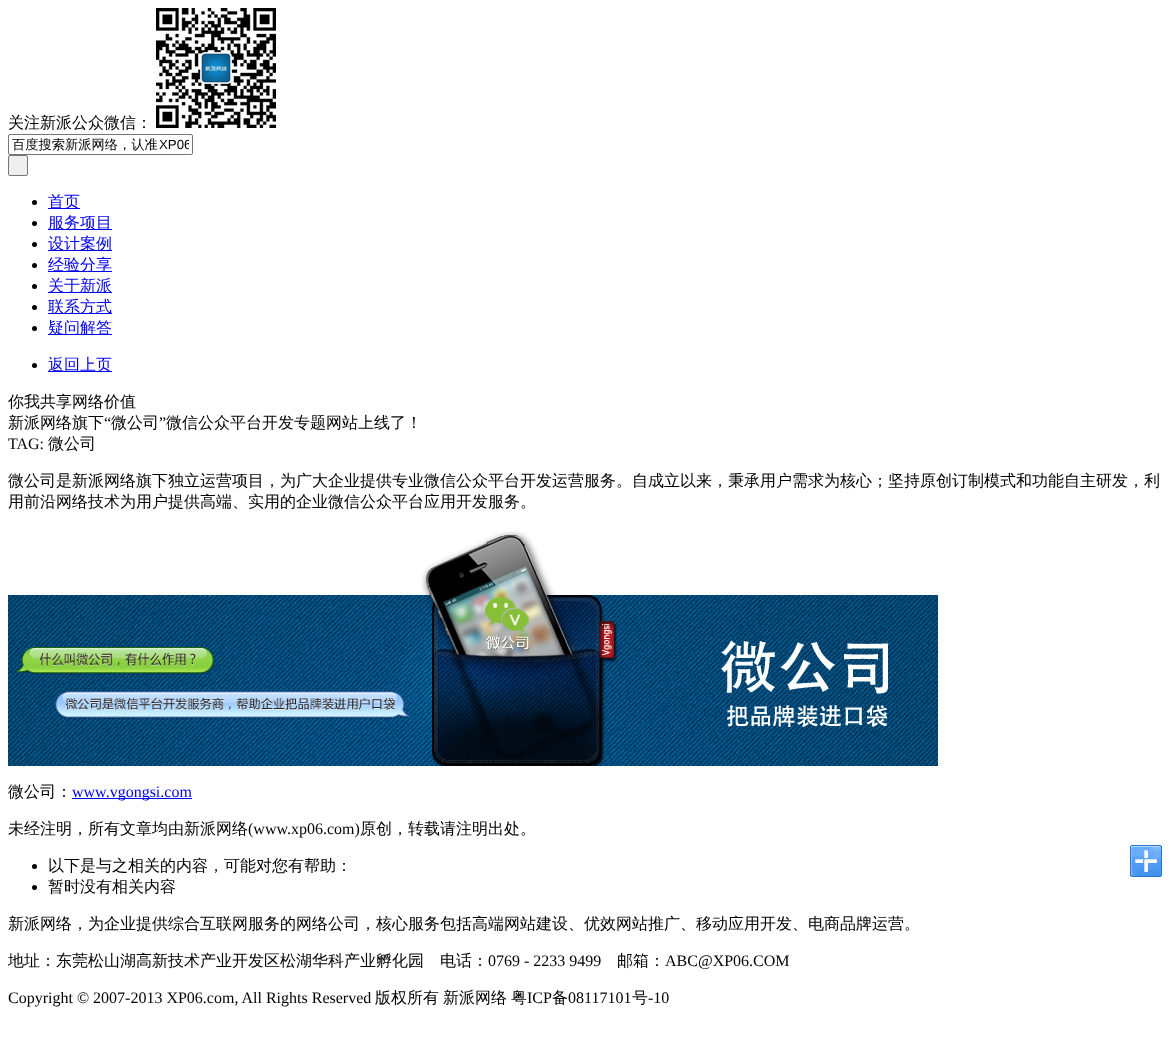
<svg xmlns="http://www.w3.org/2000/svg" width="1171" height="1053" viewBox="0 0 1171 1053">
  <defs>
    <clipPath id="clip1"><rect x="12" y="136" width="177" height="17"/></clipPath>
  </defs>
  <rect width="100%" height="100%" fill="rgb(255,255,255)"/>
  <text x="8" y="128" font-family="WenQuanYi Zen Hei" font-size="16" font-weight="500" fill="rgb(0,0,0)">关注新派公众微信：</text>
  <image x="156" y="8" width="120" height="120" href="pic1.png"/>
  <rect x="8.5" y="134.5" width="184" height="20" rx="1.5" fill="none" stroke="rgb(118,118,118)"/>
  <text x="12" y="149" font-family="WenQuanYi Zen Hei" font-size="13.25" font-weight="500" fill="rgb(0,0,0)">百度搜索新派网络，认准</text>
  <g clip-path="url(#clip1)">
    <text x="159" y="149" font-family="Liberation Sans" font-size="13.25" fill="rgb(0,0,0)">XP06</text>
  </g>
  <rect x="8.5" y="155.5" width="19" height="20" rx="1.5" fill="rgb(239,239,239)" stroke="rgb(118,118,118)"/>
  <circle cx="34.5" cy="202.5" r="2.5" fill="rgb(0,0,0)"/>
  <rect x="48" y="208" width="32" height="1" fill="rgb(0,0,238)"/>
  <text x="48" y="207" font-family="WenQuanYi Zen Hei" font-size="16" font-weight="500" fill="rgb(0,0,238)">首页</text>
  <circle cx="34.5" cy="223.5" r="2.5" fill="rgb(0,0,0)"/>
  <rect x="48" y="229" width="64" height="1" fill="rgb(0,0,238)"/>
  <text x="48" y="228" font-family="WenQuanYi Zen Hei" font-size="16" font-weight="500" fill="rgb(0,0,238)">服务项目</text>
  <circle cx="34.5" cy="244.5" r="2.5" fill="rgb(0,0,0)"/>
  <rect x="48" y="250" width="64" height="1" fill="rgb(0,0,238)"/>
  <text x="48" y="249" font-family="WenQuanYi Zen Hei" font-size="16" font-weight="500" fill="rgb(0,0,238)">设计案例</text>
  <circle cx="34.5" cy="265.5" r="2.5" fill="rgb(0,0,0)"/>
  <rect x="48" y="271" width="64" height="1" fill="rgb(0,0,238)"/>
  <text x="48" y="270" font-family="WenQuanYi Zen Hei" font-size="16" font-weight="500" fill="rgb(0,0,238)">经验分享</text>
  <circle cx="34.5" cy="286.5" r="2.5" fill="rgb(0,0,0)"/>
  <rect x="48" y="292" width="64" height="1" fill="rgb(0,0,238)"/>
  <text x="48" y="291" font-family="WenQuanYi Zen Hei" font-size="16" font-weight="500" fill="rgb(0,0,238)">关于新派</text>
  <circle cx="34.5" cy="307.5" r="2.5" fill="rgb(0,0,0)"/>
  <rect x="48" y="313" width="64" height="1" fill="rgb(0,0,238)"/>
  <text x="48" y="312" font-family="WenQuanYi Zen Hei" font-size="16" font-weight="500" fill="rgb(0,0,238)">联系方式</text>
  <circle cx="34.5" cy="328.5" r="2.5" fill="rgb(0,0,0)"/>
  <rect x="48" y="334" width="64" height="1" fill="rgb(0,0,238)"/>
  <text x="48" y="333" font-family="WenQuanYi Zen Hei" font-size="16" font-weight="500" fill="rgb(0,0,238)">疑问解答</text>
  <circle cx="34.5" cy="365.5" r="2.5" fill="rgb(0,0,0)"/>
  <rect x="48" y="371" width="64" height="1" fill="rgb(0,0,238)"/>
  <text x="48" y="370" font-family="WenQuanYi Zen Hei" font-size="16" font-weight="500" fill="rgb(0,0,238)">返回上页</text>
  <g font-family="WenQuanYi Zen Hei" font-size="16" font-weight="500" fill="rgb(0,0,0)">
    <text>
      <tspan x="8" y="407">你我共享网络价值</tspan>
      <tspan x="8" y="428">新派网络旗下</tspan>
    </text>
  </g>
  <text x="104" y="428" font-family="Liberation Serif" font-size="16" fill="rgb(0,0,0)">“</text>
  <text x="111" y="428" font-family="WenQuanYi Zen Hei" font-size="16" font-weight="500" fill="rgb(0,0,0)">微公司</text>
  <text x="159" y="428" font-family="Liberation Serif" font-size="16" fill="rgb(0,0,0)">”</text>
  <text x="166" y="428" font-family="WenQuanYi Zen Hei" font-size="16" font-weight="500" fill="rgb(0,0,0)">微信公众平台开发专题网站上线了！</text>
  <text x="8" y="449" font-family="Liberation Serif" font-size="16" fill="rgb(0,0,0)">TAG:</text>
  <g font-family="WenQuanYi Zen Hei" font-size="16" font-weight="500" fill="rgb(0,0,0)">
    <text x="48" y="449">微公司</text>
    <text>
      <tspan x="8" y="486">微公司是新派网络旗下独立运营项目，为广大企业提供专业微信公众平台开发运营服务。自成立以来，秉承用户需求为核心；坚持原创订制模式和功能自主研发，利</tspan>
      <tspan x="8" y="507">用前沿网络技术为用户提供高端、实用的企业微信公众平台应用开发服务。</tspan>
    </text>
  </g>
  <image x="8" y="531" width="930" height="235" href="pic2.png"/>
  <text x="8" y="797" font-family="WenQuanYi Zen Hei" font-size="16" font-weight="500" fill="rgb(0,0,0)">微公司：</text>
  <rect x="72" y="798" width="120" height="1" fill="rgb(0,0,238)"/>
  <text x="72" y="797" font-family="Liberation Serif" font-size="16" fill="rgb(0,0,238)">www.vgongsi.com</text>
  <text x="8" y="834" font-family="WenQuanYi Zen Hei" font-size="16" font-weight="500" fill="rgb(0,0,0)">未经注明，所有文章均由新派网络</text>
  <text x="248" y="834" font-family="Liberation Serif" font-size="16" fill="rgb(0,0,0)">(www.xp06.com)</text>
  <text x="360" y="834" font-family="WenQuanYi Zen Hei" font-size="16" font-weight="500" fill="rgb(0,0,0)">原创，转载请注明出处。</text>
  <circle cx="34.5" cy="866.5" r="2.5" fill="rgb(0,0,0)"/>
  <text x="48" y="871" font-family="WenQuanYi Zen Hei" font-size="16" font-weight="500" fill="rgb(0,0,0)">以下是与之相关的内容，可能对您有帮助：</text>
  <circle cx="34.5" cy="887.5" r="2.5" fill="rgb(0,0,0)"/>
  <text x="48" y="892" font-family="WenQuanYi Zen Hei" font-size="16" font-weight="500" fill="rgb(0,0,0)">暂时没有相关内容</text>
  <image x="1130" y="845" width="32" height="32" href="pic3.png"/>
  <g font-family="WenQuanYi Zen Hei" font-size="16" font-weight="500" fill="rgb(0,0,0)">
    <text x="8" y="929">新派网络，为企业提供综合互联网服务的网络公司，核心服务包括高端网站建设、优效网站推广、移动应用开发、电商品牌运营。</text>
    <text x="8" y="966">地址：东莞松山湖高新技术产业开发区松湖华科产业孵化园　电话：</text>
  </g>
  <text x="488" y="966" font-family="Liberation Serif" font-size="16" fill="rgb(0,0,0)">0769 - 2233 9499</text>
  <text x="617" y="966" font-family="WenQuanYi Zen Hei" font-size="16" font-weight="500" fill="rgb(0,0,0)">邮箱：</text>
  <g font-family="Liberation Serif" font-size="16" fill="rgb(0,0,0)">
    <text x="665" y="966">ABC@XP06.COM</text>
    <text x="8" y="1003">Copyright © 2007-2013 XP06.com, All Rights Reserved</text>
  </g>
  <g font-family="WenQuanYi Zen Hei" font-size="16" font-weight="500" fill="rgb(0,0,0)">
    <text x="375" y="1003">版权所有</text>
    <text x="443" y="1003">新派网络</text>
    <text x="511" y="1003">粤</text>
  </g>
  <text x="527" y="1003" font-family="Liberation Serif" font-size="16" fill="rgb(0,0,0)">ICP</text>
  <text x="552" y="1003" font-family="WenQuanYi Zen Hei" font-size="16" font-weight="500" fill="rgb(0,0,0)">备</text>
  <text x="568" y="1003" font-family="Liberation Serif" font-size="16" fill="rgb(0,0,0)">08117101</text>
  <text x="632" y="1003" font-family="WenQuanYi Zen Hei" font-size="16" font-weight="500" fill="rgb(0,0,0)">号</text>
  <text x="648" y="1003" font-family="Liberation Serif" font-size="16" fill="rgb(0,0,0)">-10</text>
</svg>
